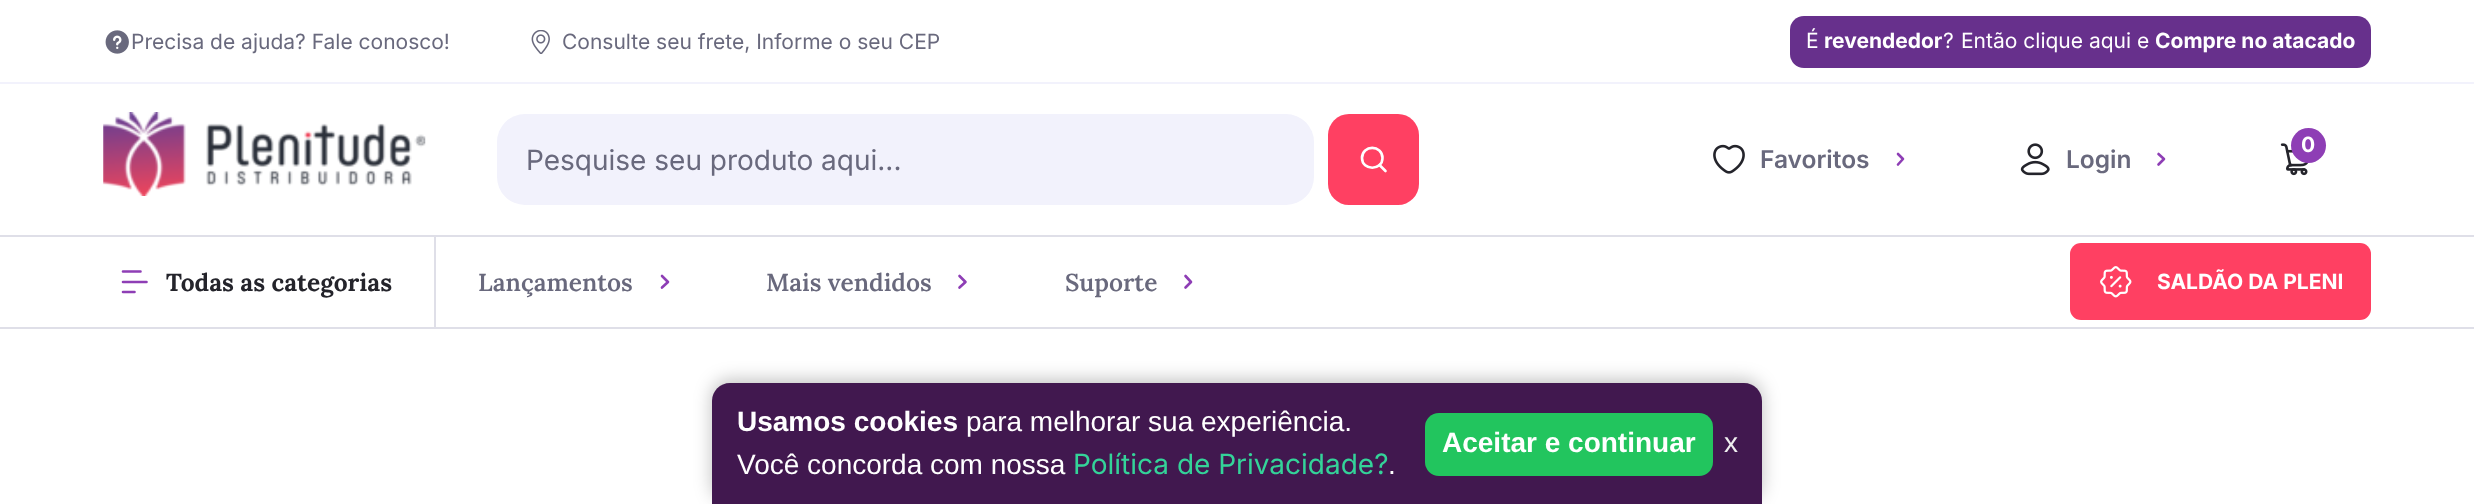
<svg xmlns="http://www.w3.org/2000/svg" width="2474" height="504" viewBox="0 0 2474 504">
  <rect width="100%" height="100%" fill="rgb(255,255,255)"/>
  <rect x="0" y="82" width="2474" height="2" fill="rgb(242,242,252)"/>
  <image x="105" y="30" width="24" height="24" href="pic1.png"/>
  <text x="131" y="49" font-family="Inter" font-size="21" fill="rgb(105,105,125)">Precisa de ajuda? Fale conosco!</text>
  <image x="531" y="30" width="19" height="24" href="pic2.png"/>
  <text x="562" y="49" font-family="Inter" font-size="21" fill="rgb(105,105,125)">Consulte seu frete, Informe o seu CEP</text>
  <rect x="1790" y="16" width="581" height="52" rx="14" fill="rgb(103,48,140)"/>
  <text x="1806" y="48" font-family="Inter" font-size="21" fill="rgb(255,255,255)">É</text>
  <text x="1824" y="48" font-family="Inter" font-size="21" font-weight="bold" fill="rgb(255,255,255)">revendedor</text>
  <g font-family="Inter" font-size="21" fill="rgb(255,255,255)">
    <text x="1943" y="48">?</text>
    <text x="1961" y="48">Então clique aqui e</text>
  </g>
  <text x="2155" y="48" font-family="Inter" font-size="21" font-weight="bold" fill="rgb(255,255,255)">Compre no atacado</text>
  <image x="103" y="112" width="323" height="84" href="pic3.png"/>
  <rect x="497" y="114" width="817" height="91" rx="28" fill="rgb(242,242,252)"/>
  <text x="526" y="170" font-family="Inter" font-size="28" fill="rgb(105,105,125)">Pesquise seu produto aqui...</text>
  <rect x="1328" y="114" width="91" height="91" rx="21" fill="rgb(255,64,98)"/>
  <path d="M1379.5 165L1385.5 171" fill="none" stroke="rgb(255,255,255)" stroke-width="2.6" stroke-linecap="round" stroke-linejoin="round"/>
  <path d="M1382.5 158C1382.5 144.5 1362 144.5 1362 158C1362 171 1382.5 171 1382.5 158Z" fill="none" stroke="rgb(255,255,255)" stroke-width="2.6" stroke-linejoin="round"/>
  <image x="2280" y="143" width="29" height="33" href="pic4.png"/>
  <circle cx="2308.5" cy="145.5" r="17.5" fill="rgb(142,62,181)"/>
  <text x="2301" y="152" font-family="Inter" font-size="21" font-weight="bold" fill="rgb(255,255,255)">0</text>
  <image x="1713" y="144" width="32" height="30" href="pic5.png"/>
  <text x="1760" y="168" font-family="Inter" font-size="24.5" font-weight="600" fill="rgb(105,105,125)">Favoritos</text>
  <path d="M1898 164.5L1903 159L1898 154" fill="none" stroke="rgb(142,62,181)" stroke-width="2.6" stroke-linecap="round" stroke-linejoin="round"/>
  <image x="2020" y="143" width="30" height="33" href="pic6.png"/>
  <text x="2066" y="168" font-family="Inter" font-size="24.5" font-weight="600" fill="rgb(105,105,125)">Login</text>
  <path d="M2158.5 164.5L2164 159L2158.5 154" fill="none" stroke="rgb(142,62,181)" stroke-width="2.6" stroke-linecap="round" stroke-linejoin="round"/>
  <rect x="0" y="235" width="2474" height="2" fill="rgb(223,223,232)"/>
  <rect x="0" y="327" width="2474" height="2" fill="rgb(223,223,232)"/>
  <rect x="434" y="236" width="2" height="91" fill="rgb(223,223,232)"/>
  <path d="M123 271.5H140.5M123 282H146.5M123 292H134.5" fill="none" stroke="rgb(142,62,181)" stroke-width="2.6" stroke-linecap="round" stroke-linejoin="round"/>
  <text x="166" y="291" font-family="Lora" font-size="24.5" font-weight="bold" fill="rgb(36,36,43)">Todas as categorias</text>
  <text x="478" y="291" font-family="Lora" font-size="24.5" font-weight="600" fill="rgb(105,105,125)">Lançamentos</text>
  <path d="M662 287.5L668 282L662 276" fill="none" stroke="rgb(142,62,181)" stroke-width="2.6" stroke-linecap="round" stroke-linejoin="round"/>
  <text x="766" y="291" font-family="Lora" font-size="24.5" font-weight="600" fill="rgb(105,105,125)">Mais vendidos</text>
  <path d="M959.5 287.5L965.5 282L959.5 276" fill="none" stroke="rgb(142,62,181)" stroke-width="2.6" stroke-linecap="round" stroke-linejoin="round"/>
  <text x="1065" y="291" font-family="Lora" font-size="24.5" font-weight="600" fill="rgb(105,105,125)">Suporte</text>
  <path d="M1185.5 287.5L1191 282L1185.5 276" fill="none" stroke="rgb(142,62,181)" stroke-width="2.6" stroke-linecap="round" stroke-linejoin="round"/>
  <rect x="2070" y="243" width="301" height="77" rx="11" fill="rgb(255,64,98)"/>
  <image x="2100" y="266" width="32" height="32" href="pic7.png"/>
  <text x="2157" y="289" font-family="Inter" font-size="21" font-weight="bold" fill="rgb(255,255,255)">SALDÃO DA PLENI</text>
  <rect x="712" y="380" width="1050" height="121" rx="18" fill="rgba(0,0,0,0.25)" filter="blur(9px)"/>
  <path d="M730 383H1744C1754 383 1762 391 1762 401V504H712V401C712 391 720 383 730 383Z" fill="rgb(65,24,79)"/>
  <text x="737" y="431" font-family="Liberation Sans" font-size="28" font-weight="bold" fill="rgb(255,255,255)">Usamos cookies</text>
  <g font-family="Liberation Sans" font-size="28" fill="rgb(255,255,255)">
    <text x="966" y="431">para melhorar sua experiência.</text>
    <text x="737" y="474">Você concorda com nossa</text>
  </g>
  <text x="1073" y="474" font-family="Inter" font-size="28" fill="rgb(52,211,153)">Política de Privacidade?</text>
  <text x="1388" y="474" font-family="Liberation Sans" font-size="28" fill="rgb(255,255,255)">.</text>
  <rect x="1425" y="413" width="288" height="63" rx="14" fill="rgb(34,197,94)"/>
  <text x="1442" y="452" font-family="Liberation Sans" font-size="28" font-weight="bold" fill="rgb(255,255,255)">Aceitar e continuar</text>
  <text x="1724" y="452" font-family="Liberation Sans" font-size="28" fill="rgb(239,239,239)">x</text>
</svg>
